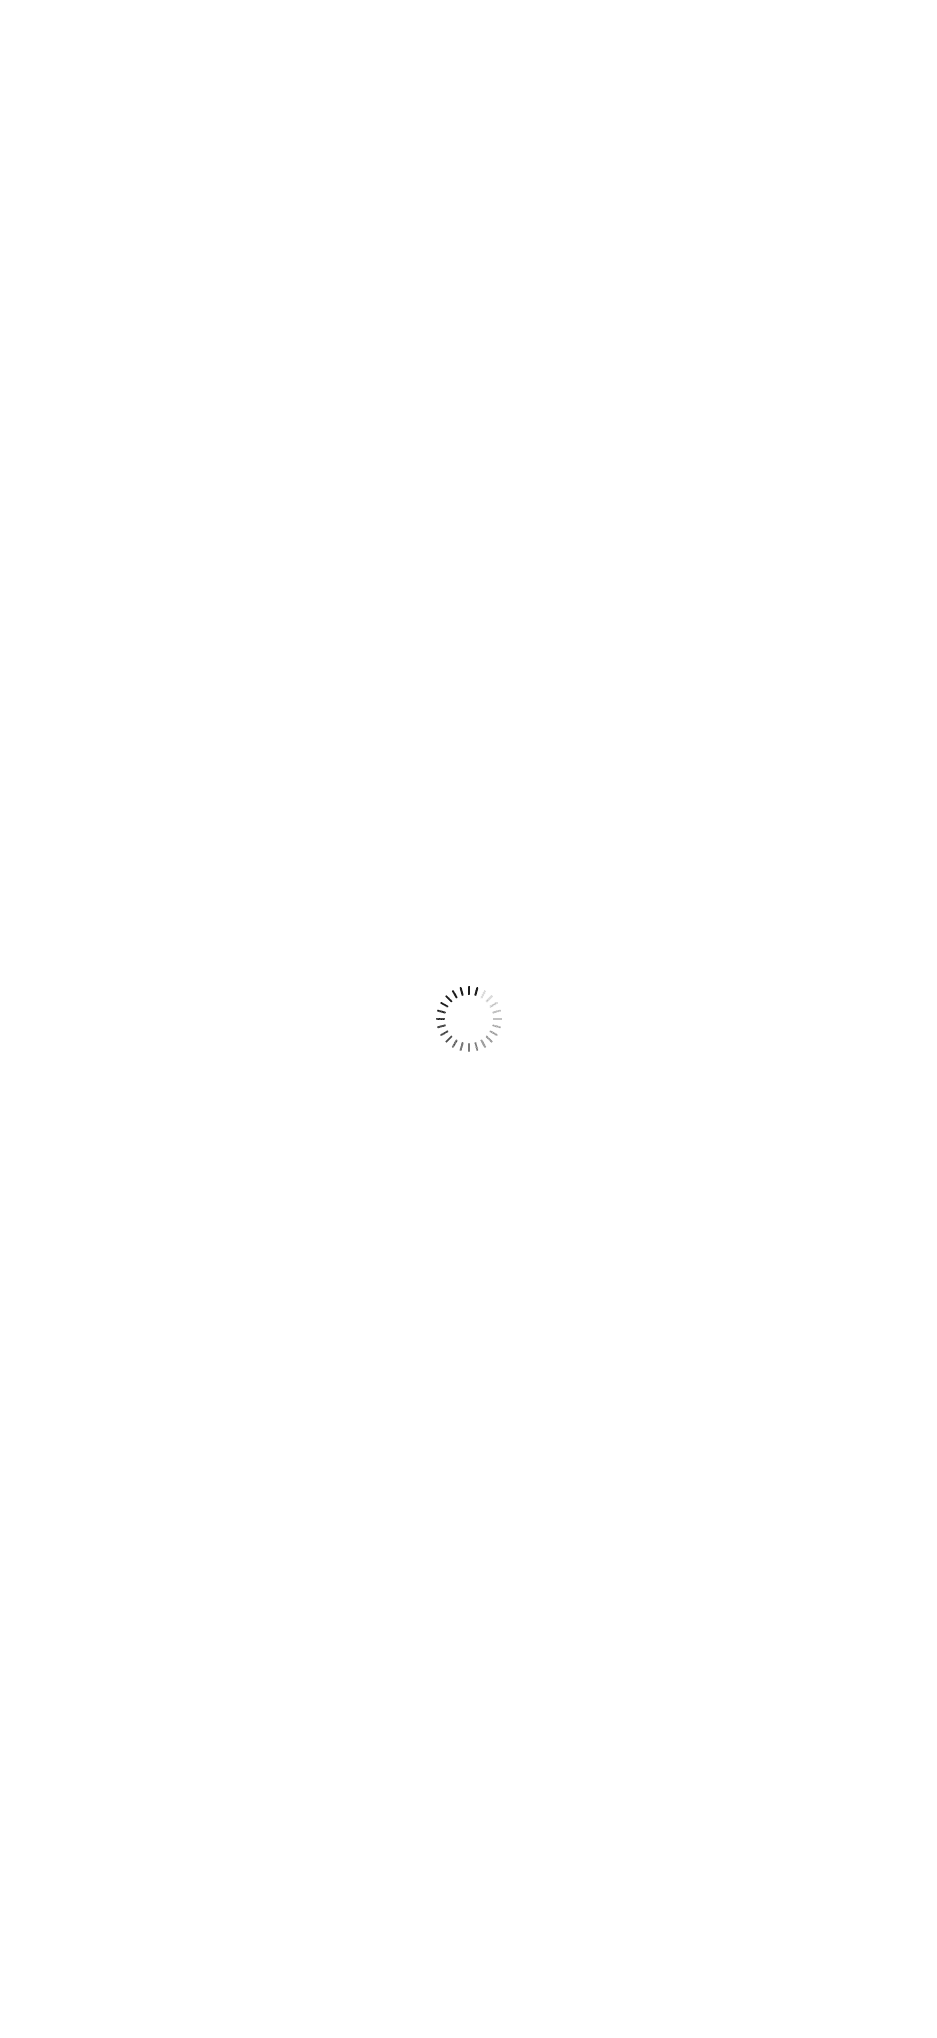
<svg xmlns="http://www.w3.org/2000/svg" width="937" height="2038" viewBox="0 0 937 2038">
  <rect width="100%" height="100%" fill="rgb(255,255,255)"/>
  <image x="436" y="986" width="66" height="66" href="pic1.png"/>
</svg>
